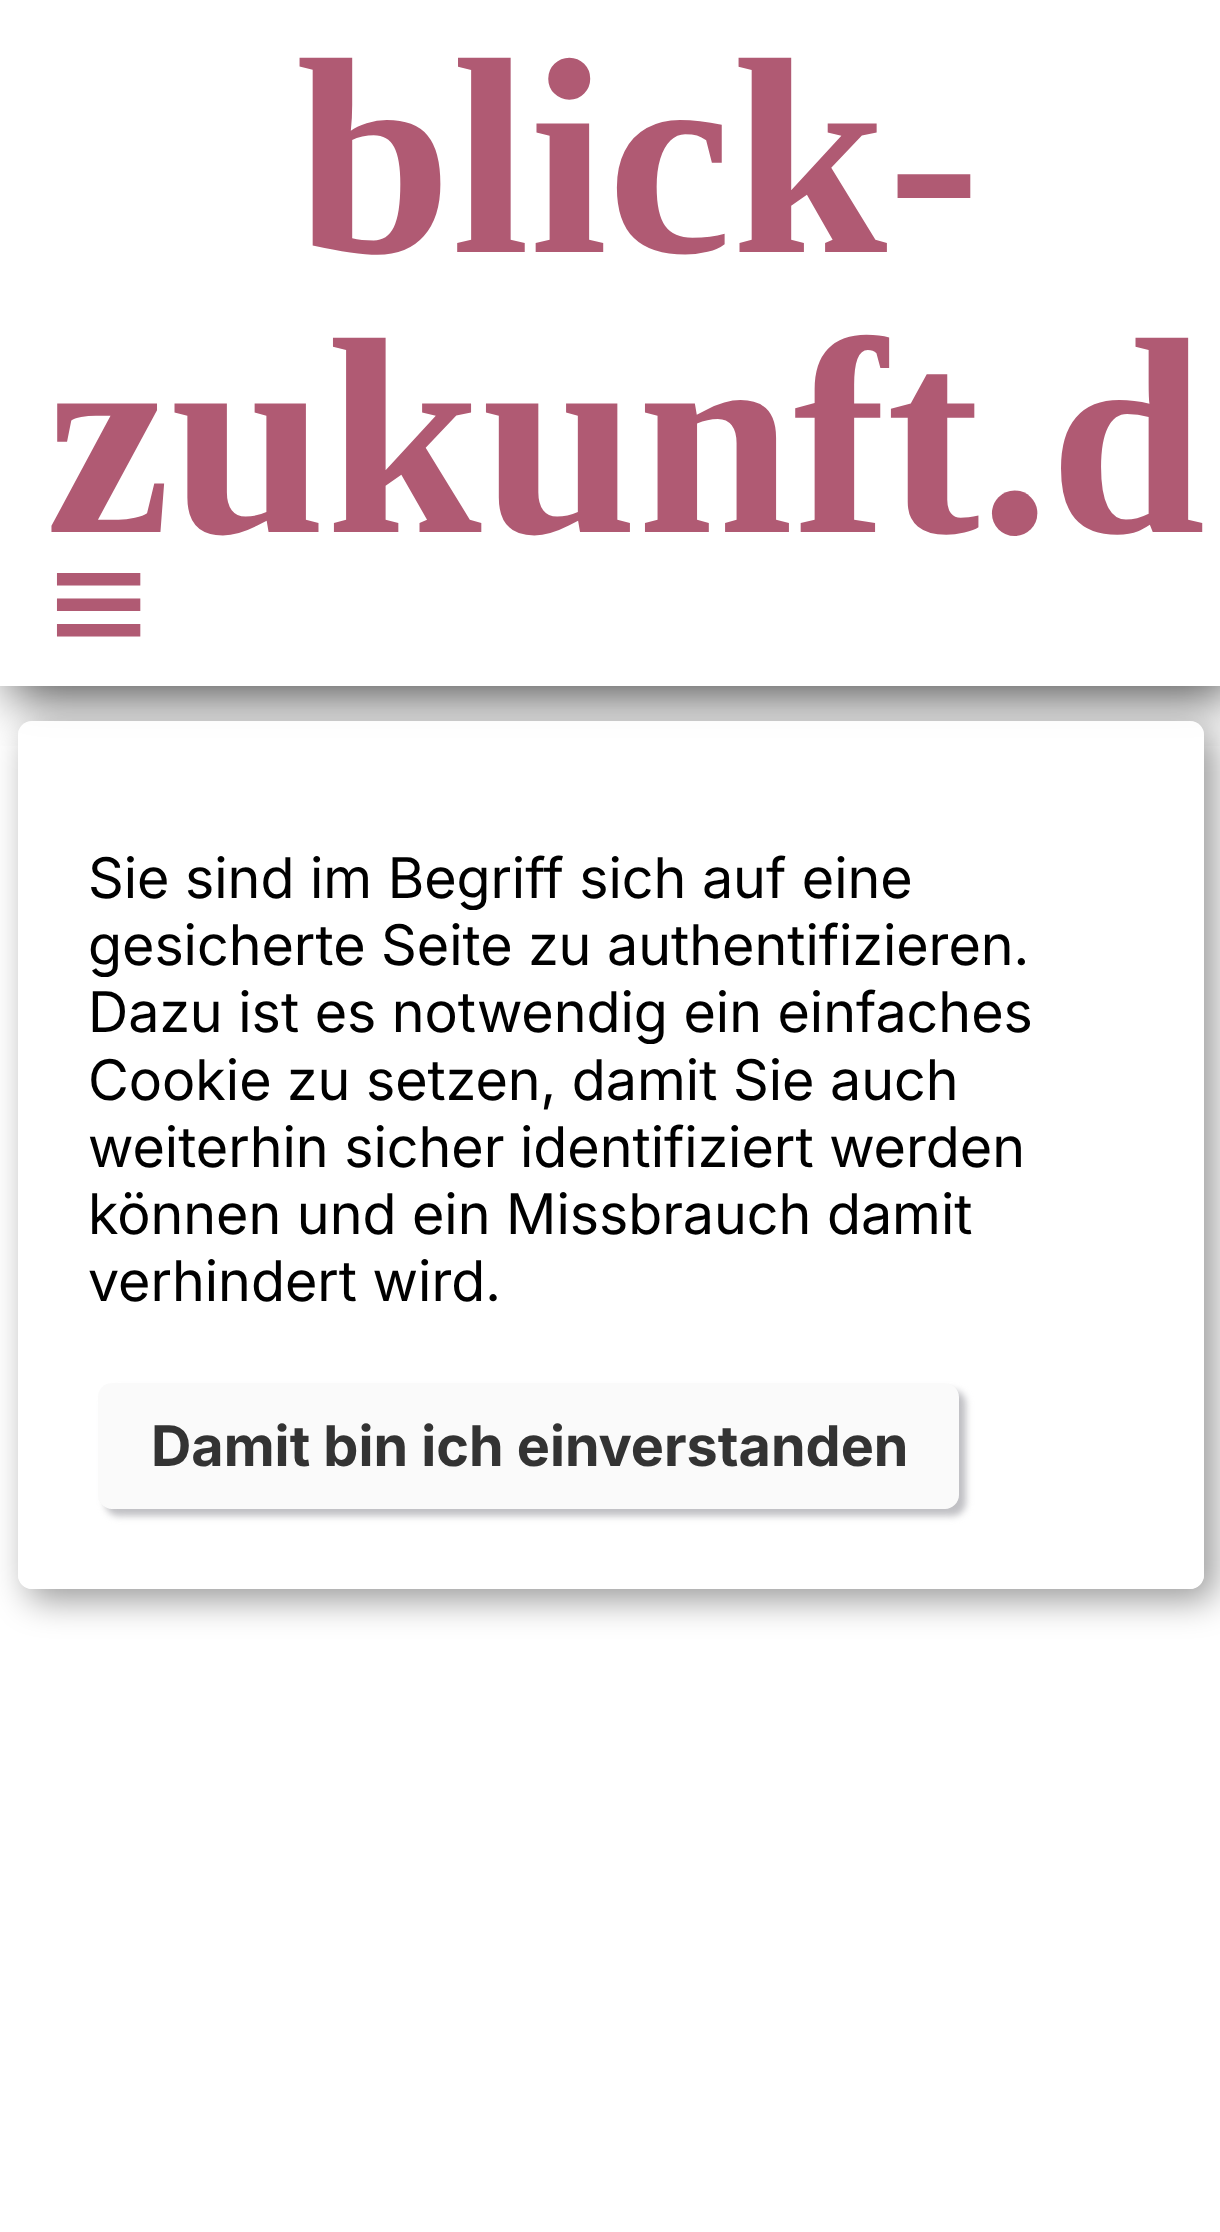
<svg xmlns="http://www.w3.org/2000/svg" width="1220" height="2232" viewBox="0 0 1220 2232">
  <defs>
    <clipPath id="clip1"><rect x="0" y="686" width="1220" height="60"/></clipPath>
    <clipPath id="clip2"><path d="M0 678H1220V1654H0ZM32 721H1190C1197.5 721 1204 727.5 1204 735V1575C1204 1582.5 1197.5 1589 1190 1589H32C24.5 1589 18 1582.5 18 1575V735C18 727.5 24.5 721 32 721Z" clip-rule="evenodd"/></clipPath>
    <clipPath id="clip3"><path d="M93 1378H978V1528H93ZM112 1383H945C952.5 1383 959 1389.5 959 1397V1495C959 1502.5 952.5 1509 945 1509H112C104.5 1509 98 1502.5 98 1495V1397C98 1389.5 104.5 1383 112 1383Z" clip-rule="evenodd"/></clipPath>
  </defs>
  <rect width="100%" height="100%" fill="rgb(255,255,255)"/>
  <g clip-path="url(#clip1)">
    <rect x="11" y="11" width="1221" height="686" fill="rgba(0,0,0,0.7)" filter="blur(26px)"/>
  </g>
  <g font-family="Liberation Serif" font-size="280" font-weight="bold" fill="rgb(176,90,115)">
    <text x="296" y="252">blick-</text>
    <text x="46" y="532">zukunft.d</text>
  </g>
  <text x="46" y="644" font-family="'Noto Sans Symbols 2'" font-size="112" fill="rgb(176,90,115)">☰</text>
  <g clip-path="url(#clip2)">
    <rect x="28" y="732" width="1187" height="868" rx="14" fill="rgba(0,0,0,0.4)" filter="blur(17.5px)"/>
  </g>
  <rect x="18" y="721" width="1186" height="868" rx="14" fill="rgba(255,255,255,0.9)"/>
  <g font-family="Inter" font-size="56" fill="rgb(0,0,0)">
    <text>
      <tspan x="88" y="898">Sie sind im Begriff sich auf eine</tspan>
      <tspan x="88" y="965">gesicherte Seite zu authentifizieren.</tspan>
      <tspan x="88" y="1032">Dazu ist es notwendig ein einfaches</tspan>
      <tspan x="88" y="1100">Cookie zu setzen, damit Sie auch</tspan>
      <tspan x="88" y="1167">weiterhin sicher identifiziert werden</tspan>
      <tspan x="88" y="1234">können und ein Missbrauch damit</tspan>
      <tspan x="88" y="1301">verhindert wird.</tspan>
    </text>
  </g>
  <g clip-path="url(#clip3)">
    <rect x="105" y="1390" width="861" height="126" rx="14" fill="rgba(185,185,190,0.9)" filter="blur(3.5px)"/>
  </g>
  <rect x="98" y="1383" width="861" height="126" rx="14" fill="rgba(210,210,210,0.1)"/>
  <text x="151" y="1466" font-family="Inter" font-size="56" font-weight="bold" fill="rgb(51,51,51)">Damit bin ich einverstanden</text>
</svg>
